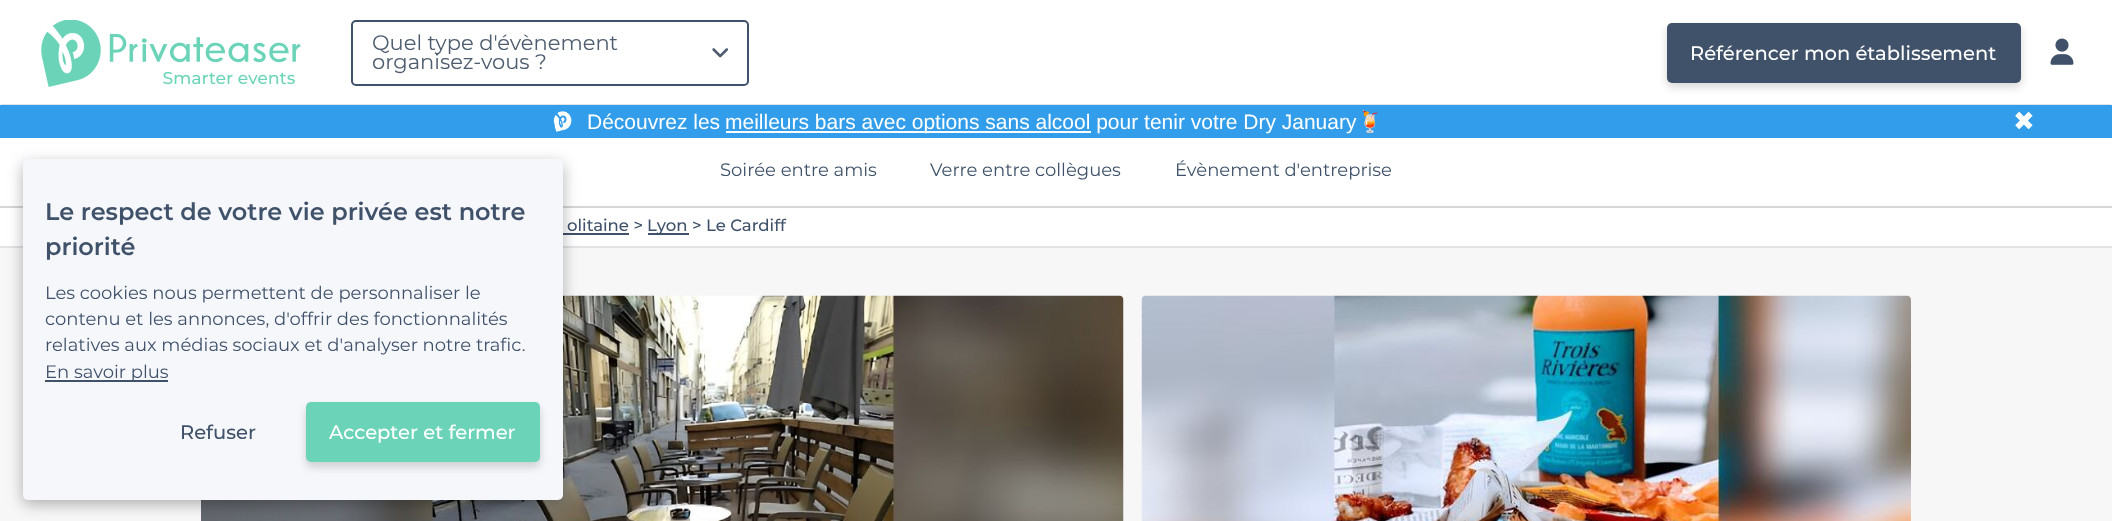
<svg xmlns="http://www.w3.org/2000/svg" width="2112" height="521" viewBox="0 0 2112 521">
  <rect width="100%" height="100%" fill="rgb(255,255,255)"/>
  <path d="M2112 105H0L2 104H2110Z" fill="rgb(225,228,228)"/>
  <image x="41" y="20" width="260" height="67" href="pic1.png"/>
  <rect x="352" y="21" width="396" height="64" rx="4" fill="none" stroke="rgb(63,82,106)" stroke-width="2"/>
  <g font-family="Montserrat" font-size="21" fill="rgb(77,92,110)">
    <text>
      <tspan x="372" y="50">Quel type d'évènement</tspan>
      <tspan x="372" y="69">organisez-vous ?</tspan>
    </text>
  </g>
  <image x="712" y="48" width="16" height="10" href="pic2.png"/>
  <rect x="1667" y="27" width="354" height="60" rx="5" fill="rgba(0,0,0,0.16)" filter="blur(4.5px)"/>
  <rect x="1667" y="23" width="354" height="60" rx="5" fill="rgb(63,82,106)"/>
  <text x="1690" y="60" font-family="Montserrat" font-size="19.5" font-weight="500" fill="rgb(255,255,255)">Référencer mon établissement</text>
  <image x="2050" y="38" width="24" height="27" href="pic3.png"/>
  <rect x="0" y="248" width="2112" height="273" fill="rgb(247,247,247)"/>
  <rect x="0" y="105" width="2112" height="33" fill="rgb(50,157,234)"/>
  <image x="553" y="111" width="19" height="21" href="pic4.png"/>
  <text x="587" y="129" font-family="Liberation Sans" font-size="21" fill="rgb(255,255,255)">Découvrez les</text>
  <rect x="726" y="131" width="365" height="2" fill="rgb(255,255,255)"/>
  <text x="725" y="129" font-family="Liberation Sans" font-size="21" fill="rgb(255,255,255)">meilleurs bars avec options sans alcool pour tenir votre Dry January</text>
  <text x="1357" y="129" font-family="Noto Color Emoji" font-size="21" fill="rgb(255,255,255)">🍹</text>
  <text x="2013" y="130" font-family="DejaVu Sans" font-size="26" fill="rgb(255,255,255)">✖</text>
  <rect x="0" y="206" width="2112" height="2" fill="rgb(214,214,214)"/>
  <g font-family="Montserrat" font-size="18" fill="rgb(63,82,106)">
    <text x="720" y="176">Soirée entre amis</text>
    <text x="930" y="176">Verre entre collègues</text>
    <text x="1175" y="176">Évènement d'entreprise</text>
  </g>
  <rect x="0" y="246" width="2112" height="2" fill="rgb(225,228,228)"/>
  <text x="567" y="231" font-family="Montserrat" font-size="16.5" font-weight="500" fill="rgb(63,82,106)">olitaine &gt;</text>
  <rect x="563" y="233" width="66" height="2" fill="rgb(63,82,106)"/>
  <rect x="648" y="233" width="41" height="2" fill="rgb(63,82,106)"/>
  <text x="647" y="231" font-family="Montserrat" font-size="16.5" font-weight="500" fill="rgb(63,82,106)">Lyon &gt; Le Cardiff</text>
  <image x="201" y="295" width="923" height="226" href="pic5.png"/>
  <image x="1141" y="295" width="770" height="226" href="pic6.png"/>
  <rect x="23" y="164" width="540" height="340" rx="5" fill="rgba(0,0,0,0.3)" filter="blur(7.5px)"/>
  <rect x="23" y="159" width="540" height="341" rx="5" fill="rgb(246,247,251)"/>
  <g font-family="Montserrat" font-size="24" font-weight="600" fill="rgb(63,82,106)">
    <text>
      <tspan x="45" y="220">Le respect de votre vie privée est notre</tspan>
      <tspan x="45" y="255">priorité</tspan>
    </text>
  </g>
  <g font-family="Montserrat" font-size="18" fill="rgb(63,82,106)">
    <text>
      <tspan x="45" y="299">Les cookies nous permettent de personnaliser le</tspan>
      <tspan x="45" y="325">contenu et les annonces, d'offrir des fonctionnalités</tspan>
      <tspan x="45" y="351">relatives aux médias sociaux et d'analyser notre trafic.</tspan>
    </text>
  </g>
  <rect x="45" y="380" width="123" height="2" fill="rgb(63,82,106)"/>
  <text x="45" y="378" font-family="Montserrat" font-size="18" fill="rgb(63,82,106)">En savoir plus</text>
  <text x="180" y="439" font-family="Montserrat" font-size="19.5" font-weight="500" fill="rgb(63,82,106)">Refuser</text>
  <rect x="306" y="407" width="234" height="60" rx="5" fill="rgba(0,0,0,0.16)" filter="blur(4.5px)"/>
  <rect x="306" y="402" width="234" height="60" rx="5" fill="rgb(107,212,184)"/>
  <text x="329" y="439" font-family="Montserrat" font-size="19.5" font-weight="500" fill="rgb(255,255,255)">Accepter et fermer</text>
</svg>
